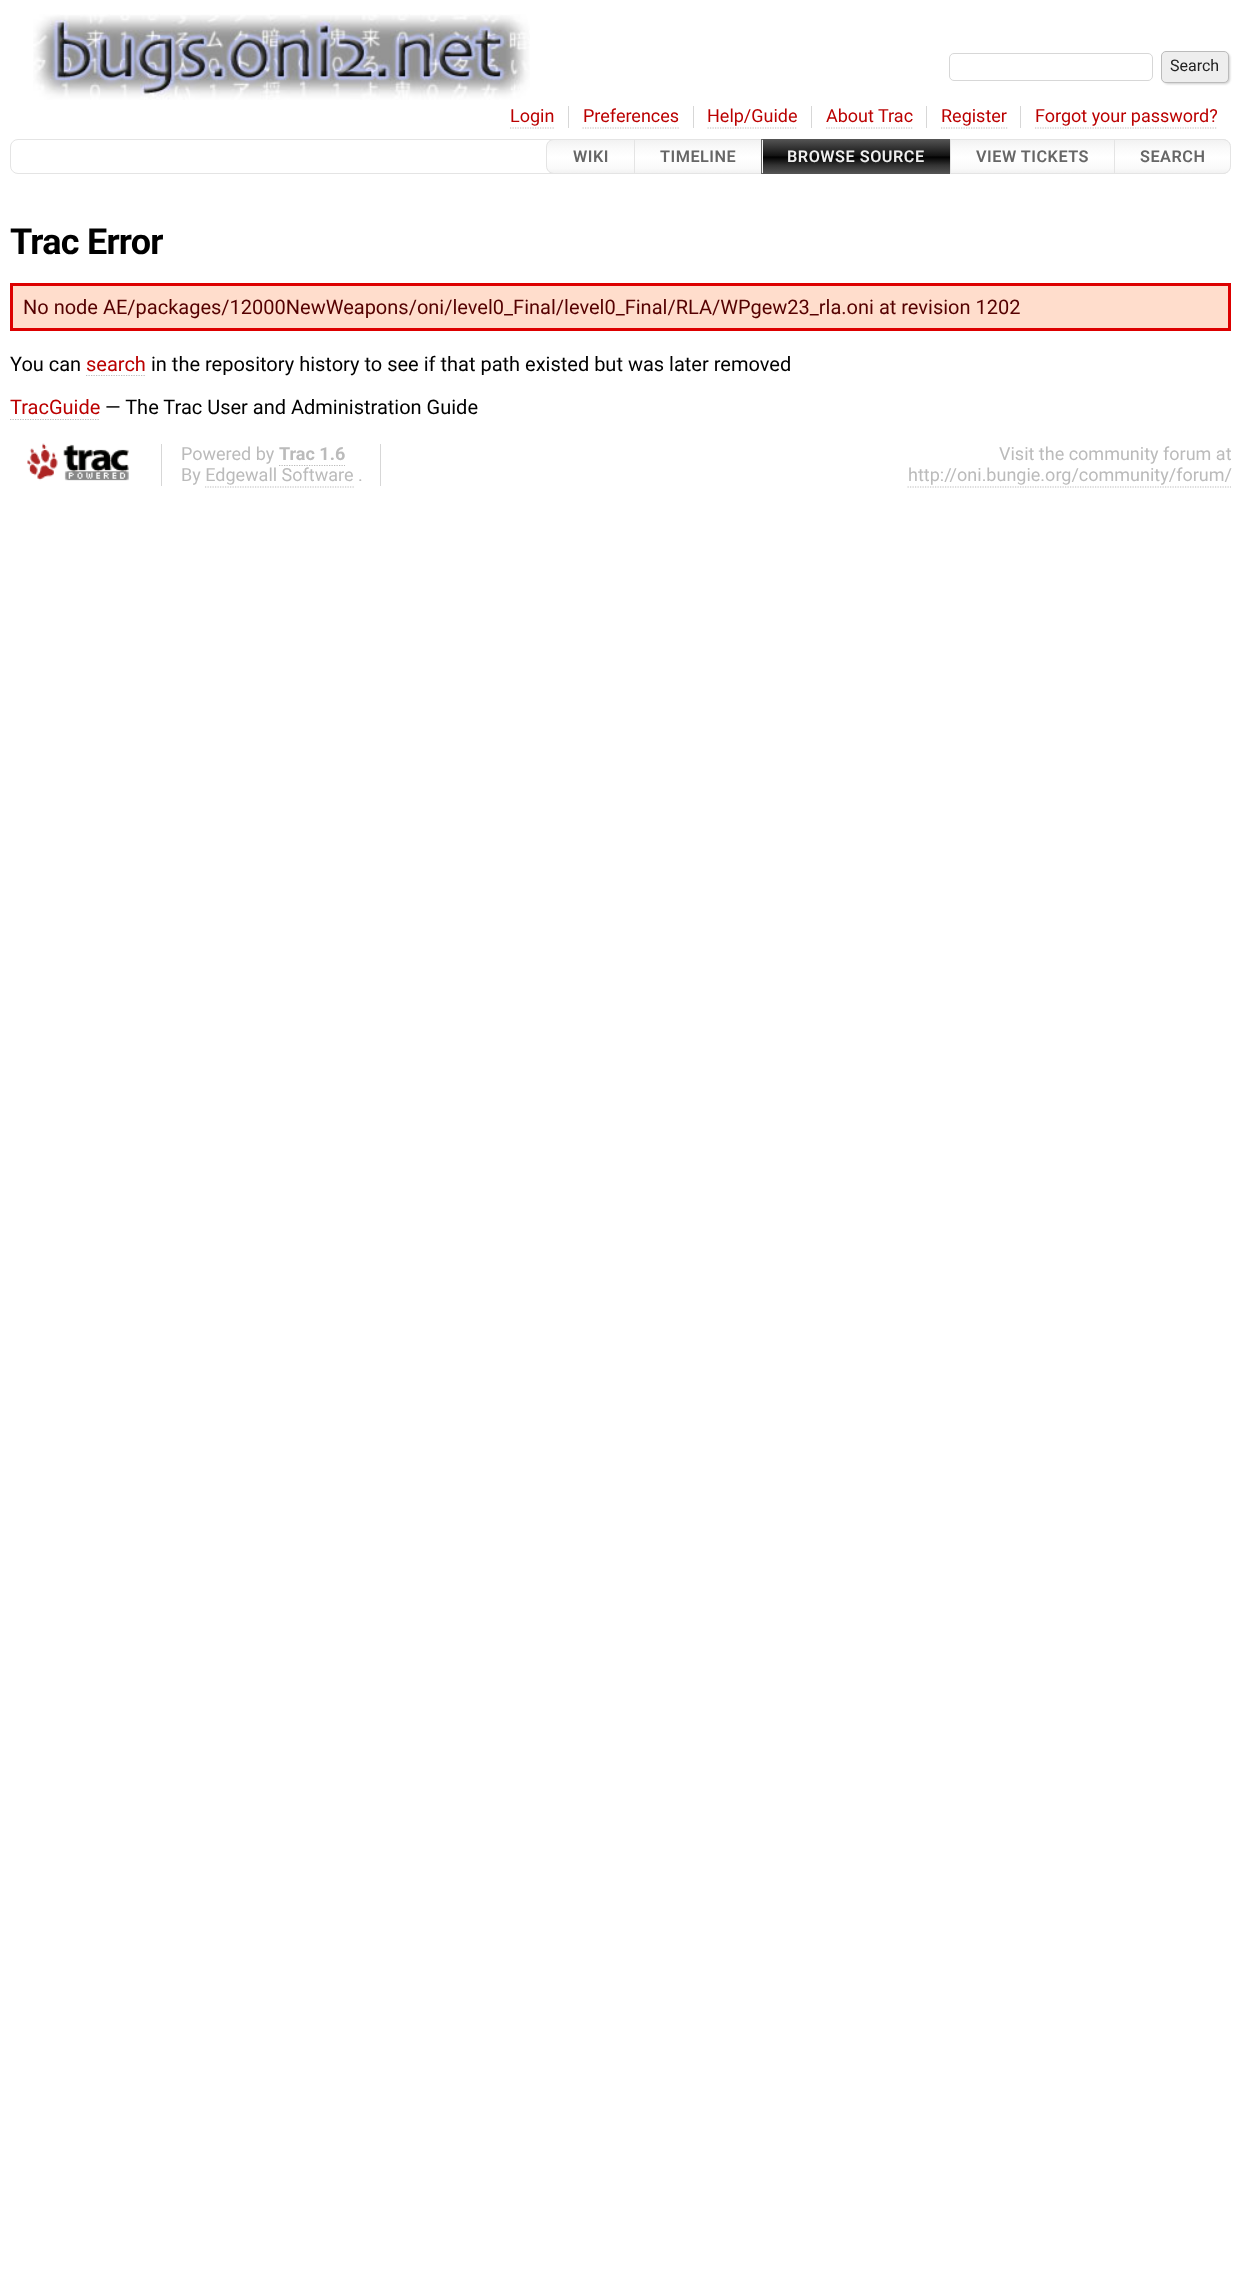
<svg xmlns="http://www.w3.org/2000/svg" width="1241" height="2273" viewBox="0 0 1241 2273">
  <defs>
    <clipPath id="clip1"><path d="M554 139H635V174H554C549.5 174 546 170.5 546 166V147C546 142.5 549.5 139 554 139Z"/></clipPath>
    <linearGradient id="g1" gradientUnits="userSpaceOnUse" x1="591" y1="140" x2="591" y2="173"><stop offset="0" stop-color="rgb(242,242,242)"/><stop offset="0.25" stop-color="rgb(250,250,250)"/><stop offset="0.49" stop-color="rgb(254,254,254)"/><stop offset="0.51" stop-color="rgb(255,255,255)"/><stop offset="0.85" stop-color="rgb(250,250,250)"/><stop offset="1" stop-color="rgb(242,242,242)"/></linearGradient>
    <linearGradient id="g2" gradientUnits="userSpaceOnUse" x1="698" y1="140" x2="698" y2="173"><stop offset="0" stop-color="rgb(242,242,242)"/><stop offset="0.25" stop-color="rgb(250,250,250)"/><stop offset="0.49" stop-color="rgb(254,254,254)"/><stop offset="0.51" stop-color="rgb(255,255,255)"/><stop offset="0.85" stop-color="rgb(250,250,250)"/><stop offset="1" stop-color="rgb(242,242,242)"/></linearGradient>
    <linearGradient id="g3" gradientUnits="userSpaceOnUse" x1="856" y1="140" x2="856" y2="173"><stop offset="0" stop-color="rgb(242,242,242)"/><stop offset="0.25" stop-color="rgb(250,250,250)"/><stop offset="0.49" stop-color="rgb(254,254,254)"/><stop offset="0.51" stop-color="rgb(255,255,255)"/><stop offset="0.85" stop-color="rgb(250,250,250)"/><stop offset="1" stop-color="rgb(242,242,242)"/></linearGradient>
    <linearGradient id="g4" gradientUnits="userSpaceOnUse" x1="856" y1="139" x2="856" y2="174"><stop offset="0" stop-color="rgb(85,85,85)"/><stop offset="0.25" stop-color="rgb(51,51,51)"/><stop offset="0.49" stop-color="rgb(17,17,17)"/><stop offset="0.51" stop-color="rgb(0,0,0)"/><stop offset="0.75" stop-color="rgb(51,51,51)"/><stop offset="1" stop-color="rgb(85,85,85)"/></linearGradient>
    <linearGradient id="g5" gradientUnits="userSpaceOnUse" x1="1033" y1="140" x2="1033" y2="173"><stop offset="0" stop-color="rgb(242,242,242)"/><stop offset="0.25" stop-color="rgb(250,250,250)"/><stop offset="0.49" stop-color="rgb(254,254,254)"/><stop offset="0.51" stop-color="rgb(255,255,255)"/><stop offset="0.85" stop-color="rgb(250,250,250)"/><stop offset="1" stop-color="rgb(242,242,242)"/></linearGradient>
    <clipPath id="clip2"><path d="M1114 139H1223C1227.5 139 1231 142.5 1231 147V166C1231 170.5 1227.5 174 1223 174H1114Z"/></clipPath>
    <linearGradient id="g6" gradientUnits="userSpaceOnUse" x1="1173" y1="140" x2="1173" y2="173"><stop offset="0" stop-color="rgb(242,242,242)"/><stop offset="0.25" stop-color="rgb(250,250,250)"/><stop offset="0.49" stop-color="rgb(254,254,254)"/><stop offset="0.51" stop-color="rgb(255,255,255)"/><stop offset="0.85" stop-color="rgb(250,250,250)"/><stop offset="1" stop-color="rgb(242,242,242)"/></linearGradient>
  </defs>
  <rect width="100%" height="100%" fill="rgb(255,255,255)"/>
  <image x="33" y="14" width="497" height="86" href="pic1.png"/>
  <rect x="949.5" y="53.5" width="203" height="27" rx="4.5" fill="none" stroke="rgb(215,215,215)"/>
  <rect x="1163" y="53" width="67" height="31" rx="5" fill="rgb(204,204,204)" filter="blur(1px)"/>
  <rect x="1161.5" y="51.5" width="67" height="31" rx="4.5" fill="rgb(238,238,238)" stroke="rgb(187,187,187)"/>
  <text x="1170" y="71" font-family="Roboto" font-size="16" fill="rgb(34,34,34)">Search</text>
  <rect x="568" y="106" width="1" height="22" fill="rgb(215,215,215)"/>
  <text x="510" y="122" font-family="Roboto" font-size="18" fill="rgb(187,0,0)">Login</text>
  <path d="M510 128H555" fill="none" stroke="rgb(187,187,187)" stroke-width="1.2" stroke-dasharray="1.25 1.25"/>
  <rect x="693" y="106" width="1" height="22" fill="rgb(215,215,215)"/>
  <text x="583" y="122" font-family="Roboto" font-size="18" fill="rgb(187,0,0)">Preferences</text>
  <path d="M582.5 128H679" fill="none" stroke="rgb(187,187,187)" stroke-width="1.2" stroke-dasharray="1.25 1.25"/>
  <rect x="811" y="106" width="1" height="22" fill="rgb(215,215,215)"/>
  <text x="707" y="122" font-family="Roboto" font-size="18" fill="rgb(187,0,0)">Help/Guide</text>
  <path d="M707.5 128H797.5" fill="none" stroke="rgb(187,187,187)" stroke-width="1.2" stroke-dasharray="1.25 1.25"/>
  <rect x="926" y="106" width="1" height="22" fill="rgb(215,215,215)"/>
  <text x="826" y="122" font-family="Roboto" font-size="18" fill="rgb(187,0,0)">About Trac</text>
  <path d="M826 128H912.5" fill="none" stroke="rgb(187,187,187)" stroke-width="1.2" stroke-dasharray="1.25 1.25"/>
  <rect x="1020" y="106" width="1" height="22" fill="rgb(215,215,215)"/>
  <text x="941" y="122" font-family="Roboto" font-size="18" fill="rgb(187,0,0)">Register</text>
  <path d="M941 128H1007.5" fill="none" stroke="rgb(187,187,187)" stroke-width="1.2" stroke-dasharray="1.25 1.25"/>
  <text x="1035" y="122" font-family="Roboto" font-size="18" fill="rgb(187,0,0)">Forgot your password?</text>
  <path d="M1035 128H1217.5" fill="none" stroke="rgb(187,187,187)" stroke-width="1.2" stroke-dasharray="1.25 1.25"/>
  <rect x="10.5" y="139.5" width="1220" height="34" rx="7.5" fill="none" stroke="rgb(228,228,228)"/>
  <g clip-path="url(#clip1)">
    <rect x="546" y="140" width="88" height="33" fill="url(#g1)"/>
  </g>
  <path d="M554 139.5H634.5V173.5H554C550 173.5 546.5 170 546.5 166V147C546.5 143 550 139.5 554 139.5Z" fill="none" stroke="rgb(228,228,228)"/>
  <text x="573" y="162" font-family="Roboto" font-size="16.25" font-weight="600" letter-spacing="0.5" fill="rgb(102,102,102)">WIKI</text>
  <rect x="635" y="140" width="126" height="33" fill="url(#g2)"/>
  <rect x="634.5" y="139.5" width="128" height="34" fill="none" stroke="rgb(228,228,228)"/>
  <text x="660" y="162" font-family="Roboto" font-size="16.25" font-weight="600" letter-spacing="0.5" fill="rgb(102,102,102)">TIMELINE</text>
  <rect x="762" y="140" width="1" height="33" fill="url(#g3)"/>
  <rect x="761.5" y="139.5" width="189" height="34" fill="none" stroke="rgb(102,102,102)"/>
  <rect x="763" y="139" width="187" height="35" fill="url(#g4)"/>
  <text x="787" y="162" font-family="Roboto" font-size="16.25" font-weight="600" letter-spacing="0.5" fill="rgb(238,238,238)">BROWSE SOURCE</text>
  <rect x="951" y="140" width="163" height="33" fill="url(#g5)"/>
  <rect x="950.5" y="139.5" width="164" height="34" fill="none" stroke="rgb(228,228,228)"/>
  <text x="976" y="162" font-family="Roboto" font-size="16.25" font-weight="600" letter-spacing="0.5" fill="rgb(102,102,102)">VIEW TICKETS</text>
  <g clip-path="url(#clip2)">
    <rect x="1115" y="140" width="116" height="33" fill="url(#g6)"/>
  </g>
  <path d="M1114.5 139.5H1223C1227 139.5 1230.5 143 1230.5 147V166C1230.5 170 1227 173.5 1223 173.5H1114.5Z" fill="none" stroke="rgb(228,228,228)"/>
  <text x="1140" y="162" font-family="Roboto" font-size="16.25" font-weight="600" letter-spacing="0.5" fill="rgb(102,102,102)">SEARCH</text>
  <text x="10" y="254" font-family="Roboto" font-size="36" font-weight="bold" letter-spacing="-0.75" fill="rgb(0,0,0)">Trac Error</text>
  <rect x="11.5" y="284.5" width="1218" height="45" fill="rgb(255,221,204)" stroke="rgb(221,0,0)" stroke-width="3"/>
  <text x="23" y="314" font-family="Roboto" font-size="20" fill="rgb(85,0,0)">No node AE/packages/12000NewWeapons/oni/level0_Final/level0_Final/RLA/WPgew23_rla.oni at revision 1202</text>
  <text x="10" y="371" font-family="Roboto" font-size="20" fill="rgb(0,0,0)">You can</text>
  <text x="86" y="371" font-family="Roboto" font-size="20" fill="rgb(187,0,0)">search</text>
  <path d="M86 375.5H146" fill="none" stroke="rgb(187,187,187)" stroke-width="1.2" stroke-dasharray="1.25 1.25"/>
  <text x="151" y="371" font-family="Roboto" font-size="20" fill="rgb(0,0,0)">in the repository history to see if that path existed but was later removed</text>
  <text x="10" y="414" font-family="Roboto" font-size="20" fill="rgb(187,0,0)">TracGuide</text>
  <path d="M10 419.5H100" fill="none" stroke="rgb(187,187,187)" stroke-width="1.2" stroke-dasharray="1.25 1.25"/>
  <text x="105" y="414" font-family="Roboto" font-size="20" fill="rgb(0,0,0)">— The Trac User and Administration Guide</text>
  <image x="27" y="443" width="102" height="38" href="pic2.png"/>
  <rect x="380" y="444" width="1" height="42" fill="rgb(215,215,215)"/>
  <rect x="161" y="444" width="1" height="42" fill="rgb(215,215,215)"/>
  <text x="181" y="460" font-family="Roboto" font-size="18" fill="rgb(187,187,187)">Powered by</text>
  <text x="279" y="460" font-family="Roboto" font-size="18" font-weight="bold" fill="rgb(187,187,187)">Trac 1.6</text>
  <path d="M279 465.5H345" fill="none" stroke="rgb(187,187,187)" stroke-width="1.2" stroke-dasharray="1.25 1.25"/>
  <text x="181" y="481" font-family="Roboto" font-size="18" fill="rgb(187,187,187)">By Edgewall Software .</text>
  <path d="M205 487H354" fill="none" stroke="rgb(187,187,187)" stroke-width="1.2" stroke-dasharray="1.25 1.25"/>
  <g font-family="Roboto" font-size="18" fill="rgb(187,187,187)">
    <text x="999" y="460">Visit the community forum at</text>
    <text x="908" y="481">http://oni.bungie.org/community/forum/</text>
  </g>
  <path d="M907.5 487H1231" fill="none" stroke="rgb(187,187,187)" stroke-width="1.2" stroke-dasharray="1.25 1.25"/>
</svg>
